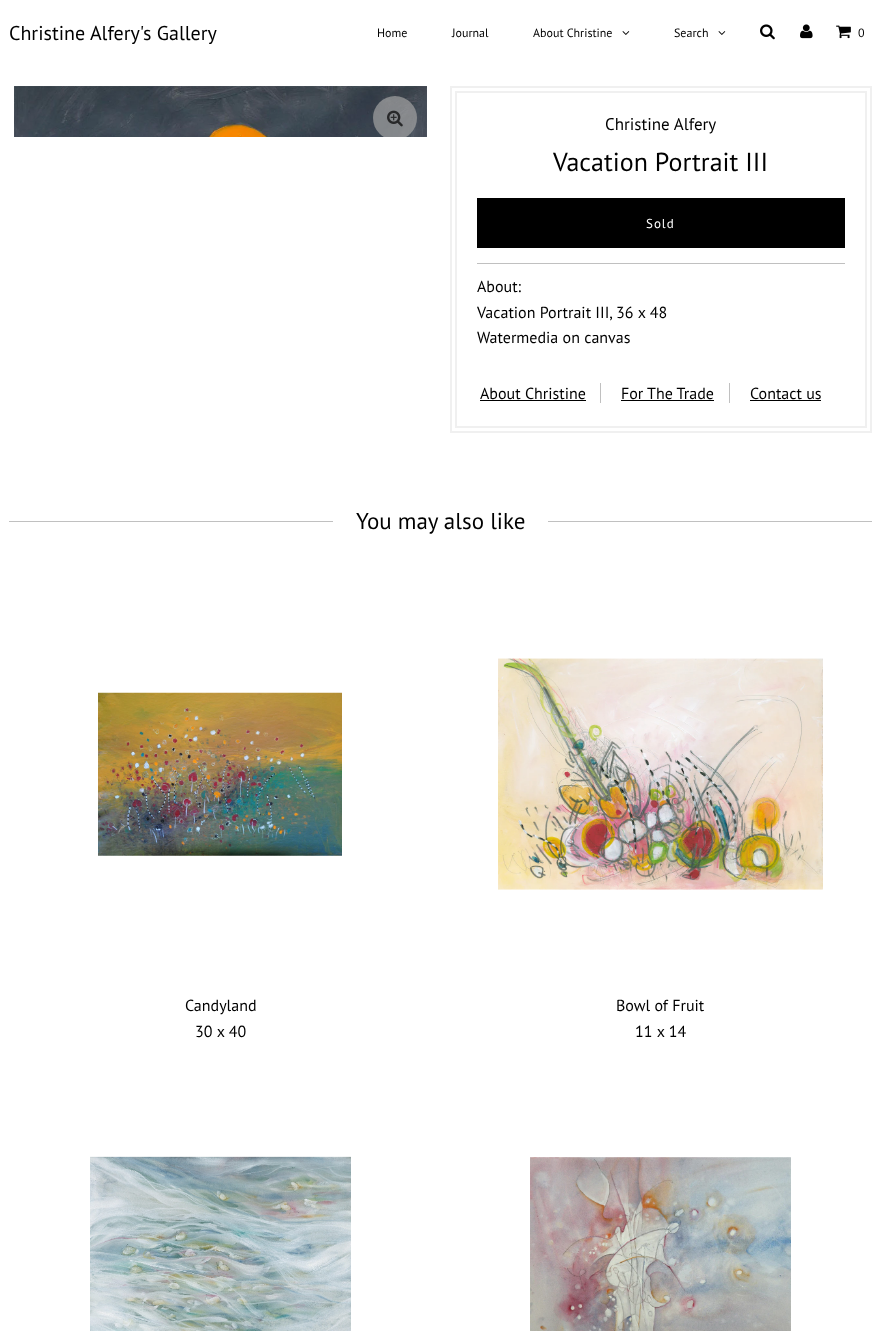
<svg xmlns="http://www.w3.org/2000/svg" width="881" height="1331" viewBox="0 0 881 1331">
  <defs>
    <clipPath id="clip1"><rect x="14" y="86" width="413" height="51"/></clipPath>
  </defs>
  <rect width="100%" height="100%" fill="rgb(255,255,255)"/>
  <text x="9" y="40" font-family="PT Sans" font-size="20" fill="rgb(0,0,0)">Christine Alfery's Gallery</text>
  <g font-family="PT Sans" font-size="12" fill="rgb(0,0,0)">
    <text x="377" y="37">Home</text>
    <text x="452" y="37">Journal</text>
    <text x="533" y="37">About Christine</text>
  </g>
  <image x="622" y="31" width="8" height="4" href="pic1.png"/>
  <text x="674" y="37" font-family="PT Sans" font-size="12" fill="rgb(0,0,0)">Search</text>
  <image x="718" y="31" width="8" height="4" href="pic1.png"/>
  <image x="760" y="24" width="15" height="16" href="pic2.png"/>
  <image x="800" y="24" width="13" height="15" href="pic3.png"/>
  <image x="836" y="25" width="15" height="14" href="pic4.png"/>
  <text x="858" y="37" font-family="PT Sans" font-size="12" fill="rgb(0,0,0)">0</text>
  <image x="14" y="86" width="413" height="51" href="pic5.png"/>
  <g clip-path="url(#clip1)">
    <circle cx="395" cy="118" r="22" fill="rgba(162,162,162,0.7)"/>
  </g>
  <image x="387" y="110" width="16" height="17" href="pic6.png"/>
  <rect x="451" y="87" width="420" height="345" fill="none" stroke="rgb(240,240,240)" stroke-width="2"/>
  <rect x="456" y="92" width="410" height="335" fill="none" stroke="rgb(240,240,240)" stroke-width="2"/>
  <text x="605" y="130" font-family="PT Sans" font-size="17" fill="rgb(0,0,0)">Christine Alfery</text>
  <text x="553" y="171" font-family="PT Sans" font-size="26" fill="rgb(0,0,0)">Vacation Portrait III</text>
  <rect x="477" y="263" width="368" height="1" fill="rgb(192,192,192)"/>
  <rect x="477" y="198" width="368" height="50" fill="rgb(0,0,0)"/>
  <text x="646" y="228" font-family="PT Sans" font-size="13" letter-spacing="1" fill="rgb(255,255,255)">Sold</text>
  <g font-family="PT Sans" font-size="16" fill="rgb(0,0,0)">
    <text>
      <tspan x="477" y="292">About:</tspan>
      <tspan x="477" y="318">Vacation Portrait III, 36 x 48</tspan>
      <tspan x="477" y="343">Watermedia on canvas</tspan>
    </text>
    <text x="480" y="399">About Christine</text>
  </g>
  <rect x="600" y="383" width="1" height="20" fill="rgb(192,192,192)"/>
  <rect x="480" y="400" width="106" height="1" fill="rgb(0,0,0)"/>
  <text x="621" y="399" font-family="PT Sans" font-size="16" fill="rgb(0,0,0)">For The Trade</text>
  <rect x="729" y="383" width="1" height="20" fill="rgb(192,192,192)"/>
  <rect x="621" y="400" width="93" height="1" fill="rgb(0,0,0)"/>
  <text x="750" y="399" font-family="PT Sans" font-size="16" fill="rgb(0,0,0)">Contact us</text>
  <rect x="750" y="400" width="71" height="1" fill="rgb(0,0,0)"/>
  <rect x="9" y="521" width="863" height="1" fill="rgb(192,192,192)"/>
  <rect x="333" y="521" width="215" height="1" fill="rgb(255,255,255)"/>
  <text x="356" y="529" font-family="PT Sans" font-size="23" fill="rgb(0,0,0)">You may also like</text>
  <image x="98" y="692" width="244" height="164" href="pic7.png"/>
  <g font-family="PT Sans" font-size="16" fill="rgb(0,0,0)">
    <text x="185" y="1011">Candyland</text>
    <text x="195" y="1037">30 x 40</text>
  </g>
  <image x="498" y="658" width="325" height="232" href="pic8.png"/>
  <g font-family="PT Sans" font-size="16" fill="rgb(0,0,0)">
    <text x="616" y="1011">Bowl of Fruit</text>
    <text x="635" y="1037">11 x 14</text>
  </g>
  <image x="90" y="1156" width="261" height="175" href="pic9.png"/>
  <image x="530" y="1157" width="261" height="174" href="pic10.png"/>
</svg>
